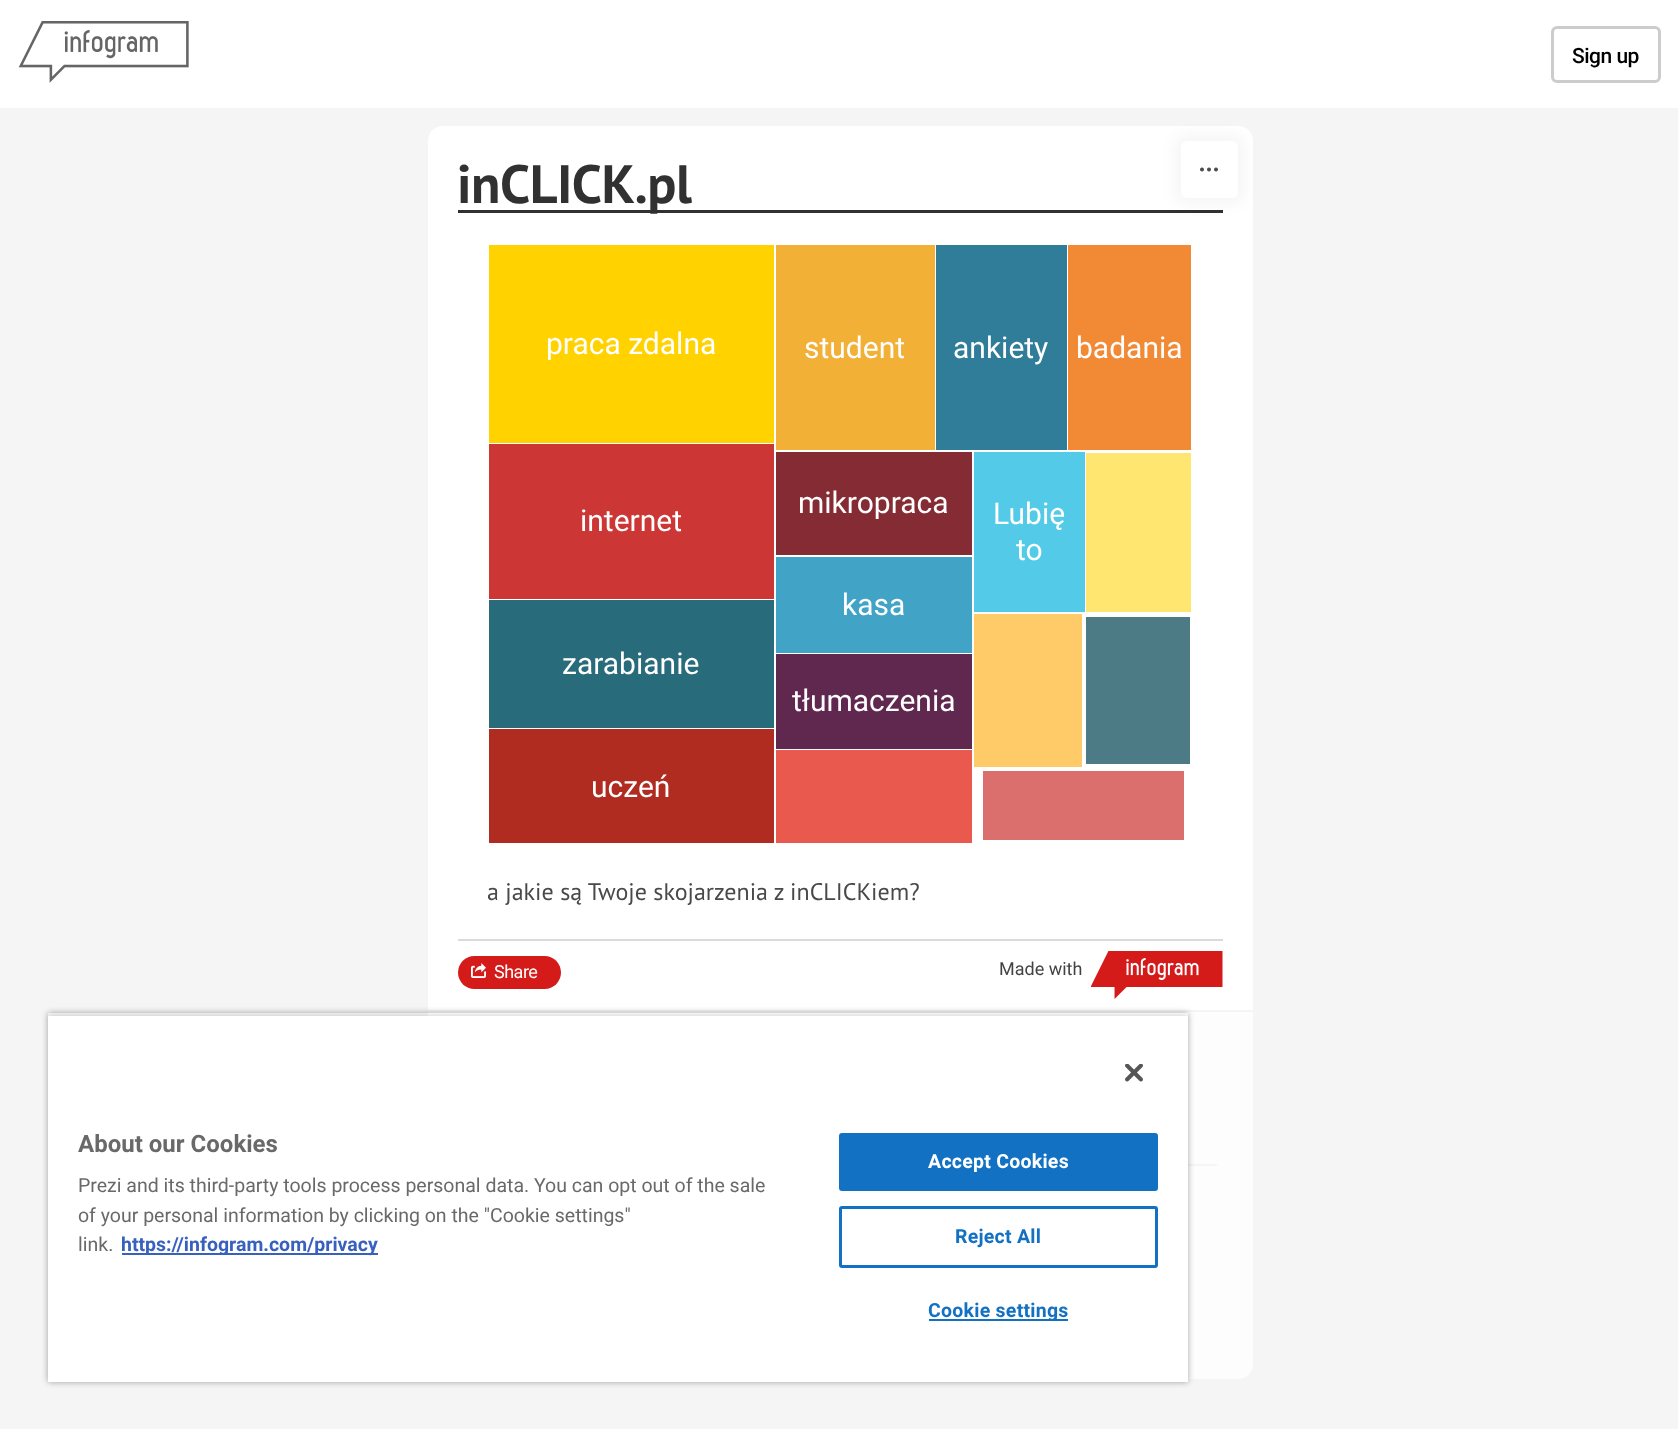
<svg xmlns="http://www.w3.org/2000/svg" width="1678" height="1429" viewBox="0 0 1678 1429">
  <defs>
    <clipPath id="clip1"><path d="M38 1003H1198V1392H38ZM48 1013H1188V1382H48Z" clip-rule="evenodd"/></clipPath>
    <clipPath id="clip2"><rect x="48" y="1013" width="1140" height="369"/></clipPath>
  </defs>
  <rect width="100%" height="100%" fill="rgb(245,245,246)"/>
  <rect x="0" y="0" width="1678" height="108" fill="rgb(255,255,255)"/>
  <image x="18" y="21" width="171" height="62" href="pic1.png"/>
  <rect x="1552.5" y="27.5" width="107" height="54" rx="4.5" fill="none" stroke="rgb(204,204,204)" stroke-width="3"/>
  <text x="1572" y="63" font-family="Roboto" font-size="21" font-weight="500" letter-spacing="-0.5" fill="rgb(0,0,0)">Sign up</text>
  <path d="M443 126H1238C1246.5 126 1253 132.5 1253 141V1010H428V141C428 132.5 434.5 126 443 126Z" fill="rgb(255,255,255)"/>
  <rect x="458" y="210" width="765" height="3" fill="rgb(49,49,49)"/>
  <text x="457" y="203" font-family="PT Sans" font-size="54" font-weight="bold" letter-spacing="-0.5" fill="rgb(49,49,49)">inCLICK.pl</text>
  <rect x="489" y="245" width="285" height="198" fill="rgb(255,210,0)"/>
  <text x="546" y="354" font-family="Roboto" font-size="30" fill="rgb(255,255,255)">praca zdalna</text>
  <rect x="776" y="245" width="159" height="205" fill="rgb(242,176,54)"/>
  <text x="804" y="358" font-family="Roboto" font-size="30" fill="rgb(255,255,255)">student</text>
  <rect x="936" y="245" width="131" height="205" fill="rgb(48,125,153)"/>
  <text x="953" y="358" font-family="Roboto" font-size="30" fill="rgb(255,255,255)">ankiety</text>
  <rect x="1068" y="245" width="123" height="205" fill="rgb(242,138,53)"/>
  <text x="1076" y="358" font-family="Roboto" font-size="30" fill="rgb(255,255,255)">badania</text>
  <rect x="489" y="444" width="285" height="155" fill="rgb(204,54,53)"/>
  <text x="580" y="531" font-family="Roboto" font-size="30" fill="rgb(255,255,255)">internet</text>
  <rect x="776" y="452" width="196" height="103" fill="rgb(133,43,51)"/>
  <text x="798" y="513" font-family="Roboto" font-size="30" fill="rgb(255,255,255)">mikropraca</text>
  <rect x="974" y="452" width="111" height="160" fill="rgb(83,202,232)"/>
  <g font-family="Roboto" font-size="30" fill="rgb(255,255,255)">
    <text x="993" y="524">Lubię</text>
    <text x="1016" y="560">to</text>
  </g>
  <rect x="1086" y="453" width="105" height="159" fill="rgb(255,230,112)"/>
  <rect x="776" y="557" width="196" height="96" fill="rgb(65,163,198)"/>
  <text x="842" y="615" font-family="Roboto" font-size="30" fill="rgb(255,255,255)">kasa</text>
  <rect x="489" y="600" width="285" height="128" fill="rgb(40,107,123)"/>
  <text x="562" y="674" font-family="Roboto" font-size="30" fill="rgb(255,255,255)">zarabianie</text>
  <rect x="974" y="614" width="108" height="153" fill="rgb(255,202,104)"/>
  <rect x="1086" y="617" width="104" height="147" fill="rgb(76,123,134)"/>
  <rect x="776" y="654" width="196" height="95" fill="rgb(96,40,79)"/>
  <text x="792" y="711" font-family="Roboto" font-size="30" fill="rgb(255,255,255)">tłumaczenia</text>
  <rect x="489" y="729" width="285" height="114" fill="rgb(176,44,32)"/>
  <text x="591" y="797" font-family="Roboto" font-size="30" fill="rgb(255,255,255)">uczeń</text>
  <rect x="776" y="750" width="196" height="93" fill="rgb(234,89,78)"/>
  <rect x="983" y="771" width="201" height="69" fill="rgb(218,111,110)"/>
  <text x="487" y="900" font-family="PT Sans" font-size="24" fill="rgb(73,73,73)">a jakie są Twoje skojarzenia z inCLICKiem?</text>
  <rect x="458" y="939" width="765" height="2" fill="rgb(218,218,218)"/>
  <rect x="458" y="956" width="103" height="33" rx="16.5" fill="rgb(213,26,26)"/>
  <image x="471" y="963" width="15" height="15" href="pic2.png"/>
  <text x="494" y="978" font-family="Roboto" font-size="18" letter-spacing="-0.5" fill="rgb(255,255,255)">Share</text>
  <text x="999" y="975" font-family="Roboto" font-size="18" fill="rgb(67,67,67)">Made with</text>
  <image x="1091" y="951" width="132" height="48" href="pic3.png"/>
  <rect x="1175" y="135" width="69" height="69" rx="12" fill="rgba(0,0,0,0.04)" filter="blur(7.5px)"/>
  <rect x="1181" y="141" width="57" height="57" rx="6" fill="rgb(255,255,255)"/>
  <image x="1200" y="167" width="18" height="5" href="pic4.png"/>
  <path d="M428 1010H1253V1364C1253 1372.5 1246.5 1379 1238 1379H443C434.5 1379 428 1372.5 428 1364Z" fill="rgb(253,253,253)"/>
  <rect x="428" y="1010" width="825" height="2" fill="rgb(245,245,246)"/>
  <rect x="1188" y="1164" width="29" height="2" fill="rgb(245,245,246)"/>
  <g clip-path="url(#clip1)">
    <rect x="48" y="1013" width="1140" height="369" fill="rgba(0,0,0,0.35)" filter="blur(3px)"/>
  </g>
  <g clip-path="url(#clip2)">
    <rect x="48" y="1016" width="1140" height="366" fill="rgba(0,0,0,0.2)" filter="blur(3px)"/>
  </g>
  <rect x="48" y="1016" width="1140" height="366" fill="rgb(255,255,255)"/>
  <image x="1125" y="1064" width="18" height="18" href="pic5.png"/>
  <text x="78" y="1152" font-family="Roboto" font-size="24" font-weight="bold" fill="rgb(105,105,105)">About our Cookies</text>
  <g font-family="Roboto" font-size="19.5" fill="rgb(105,105,105)">
    <text>
      <tspan x="78" y="1192">Prezi and its third-party tools process personal data. You can opt out of the sale</tspan>
      <tspan x="78" y="1222">of your personal information by clicking on the "Cookie settings"</tspan>
      <tspan x="78" y="1251">link.</tspan>
    </text>
  </g>
  <rect x="122" y="1253" width="256" height="2" fill="rgb(56,96,190)"/>
  <text x="121" y="1251" font-family="Roboto" font-size="19.5" font-weight="bold" fill="rgb(56,96,190)">https://infogram.com/privacy</text>
  <rect x="840" y="1134" width="317" height="56" rx="2" fill="rgb(19,113,195)" stroke="rgb(19,113,195)" stroke-width="2"/>
  <text x="928" y="1168" font-family="Roboto" font-size="19.5" font-weight="bold" letter-spacing="0.25" fill="rgb(255,255,255)">Accept Cookies</text>
  <rect x="840.5" y="1207.5" width="316" height="59" rx="1.5" fill="none" stroke="rgb(19,113,195)" stroke-width="3"/>
  <text x="955" y="1243" font-family="Roboto" font-size="19.5" font-weight="bold" letter-spacing="0.25" fill="rgb(19,113,195)">Reject All</text>
  <rect x="929" y="1319" width="139" height="2" fill="rgb(19,113,195)"/>
  <text x="928" y="1317" font-family="Roboto" font-size="19.5" font-weight="bold" letter-spacing="0.25" fill="rgb(19,113,195)">Cookie settings</text>
</svg>
